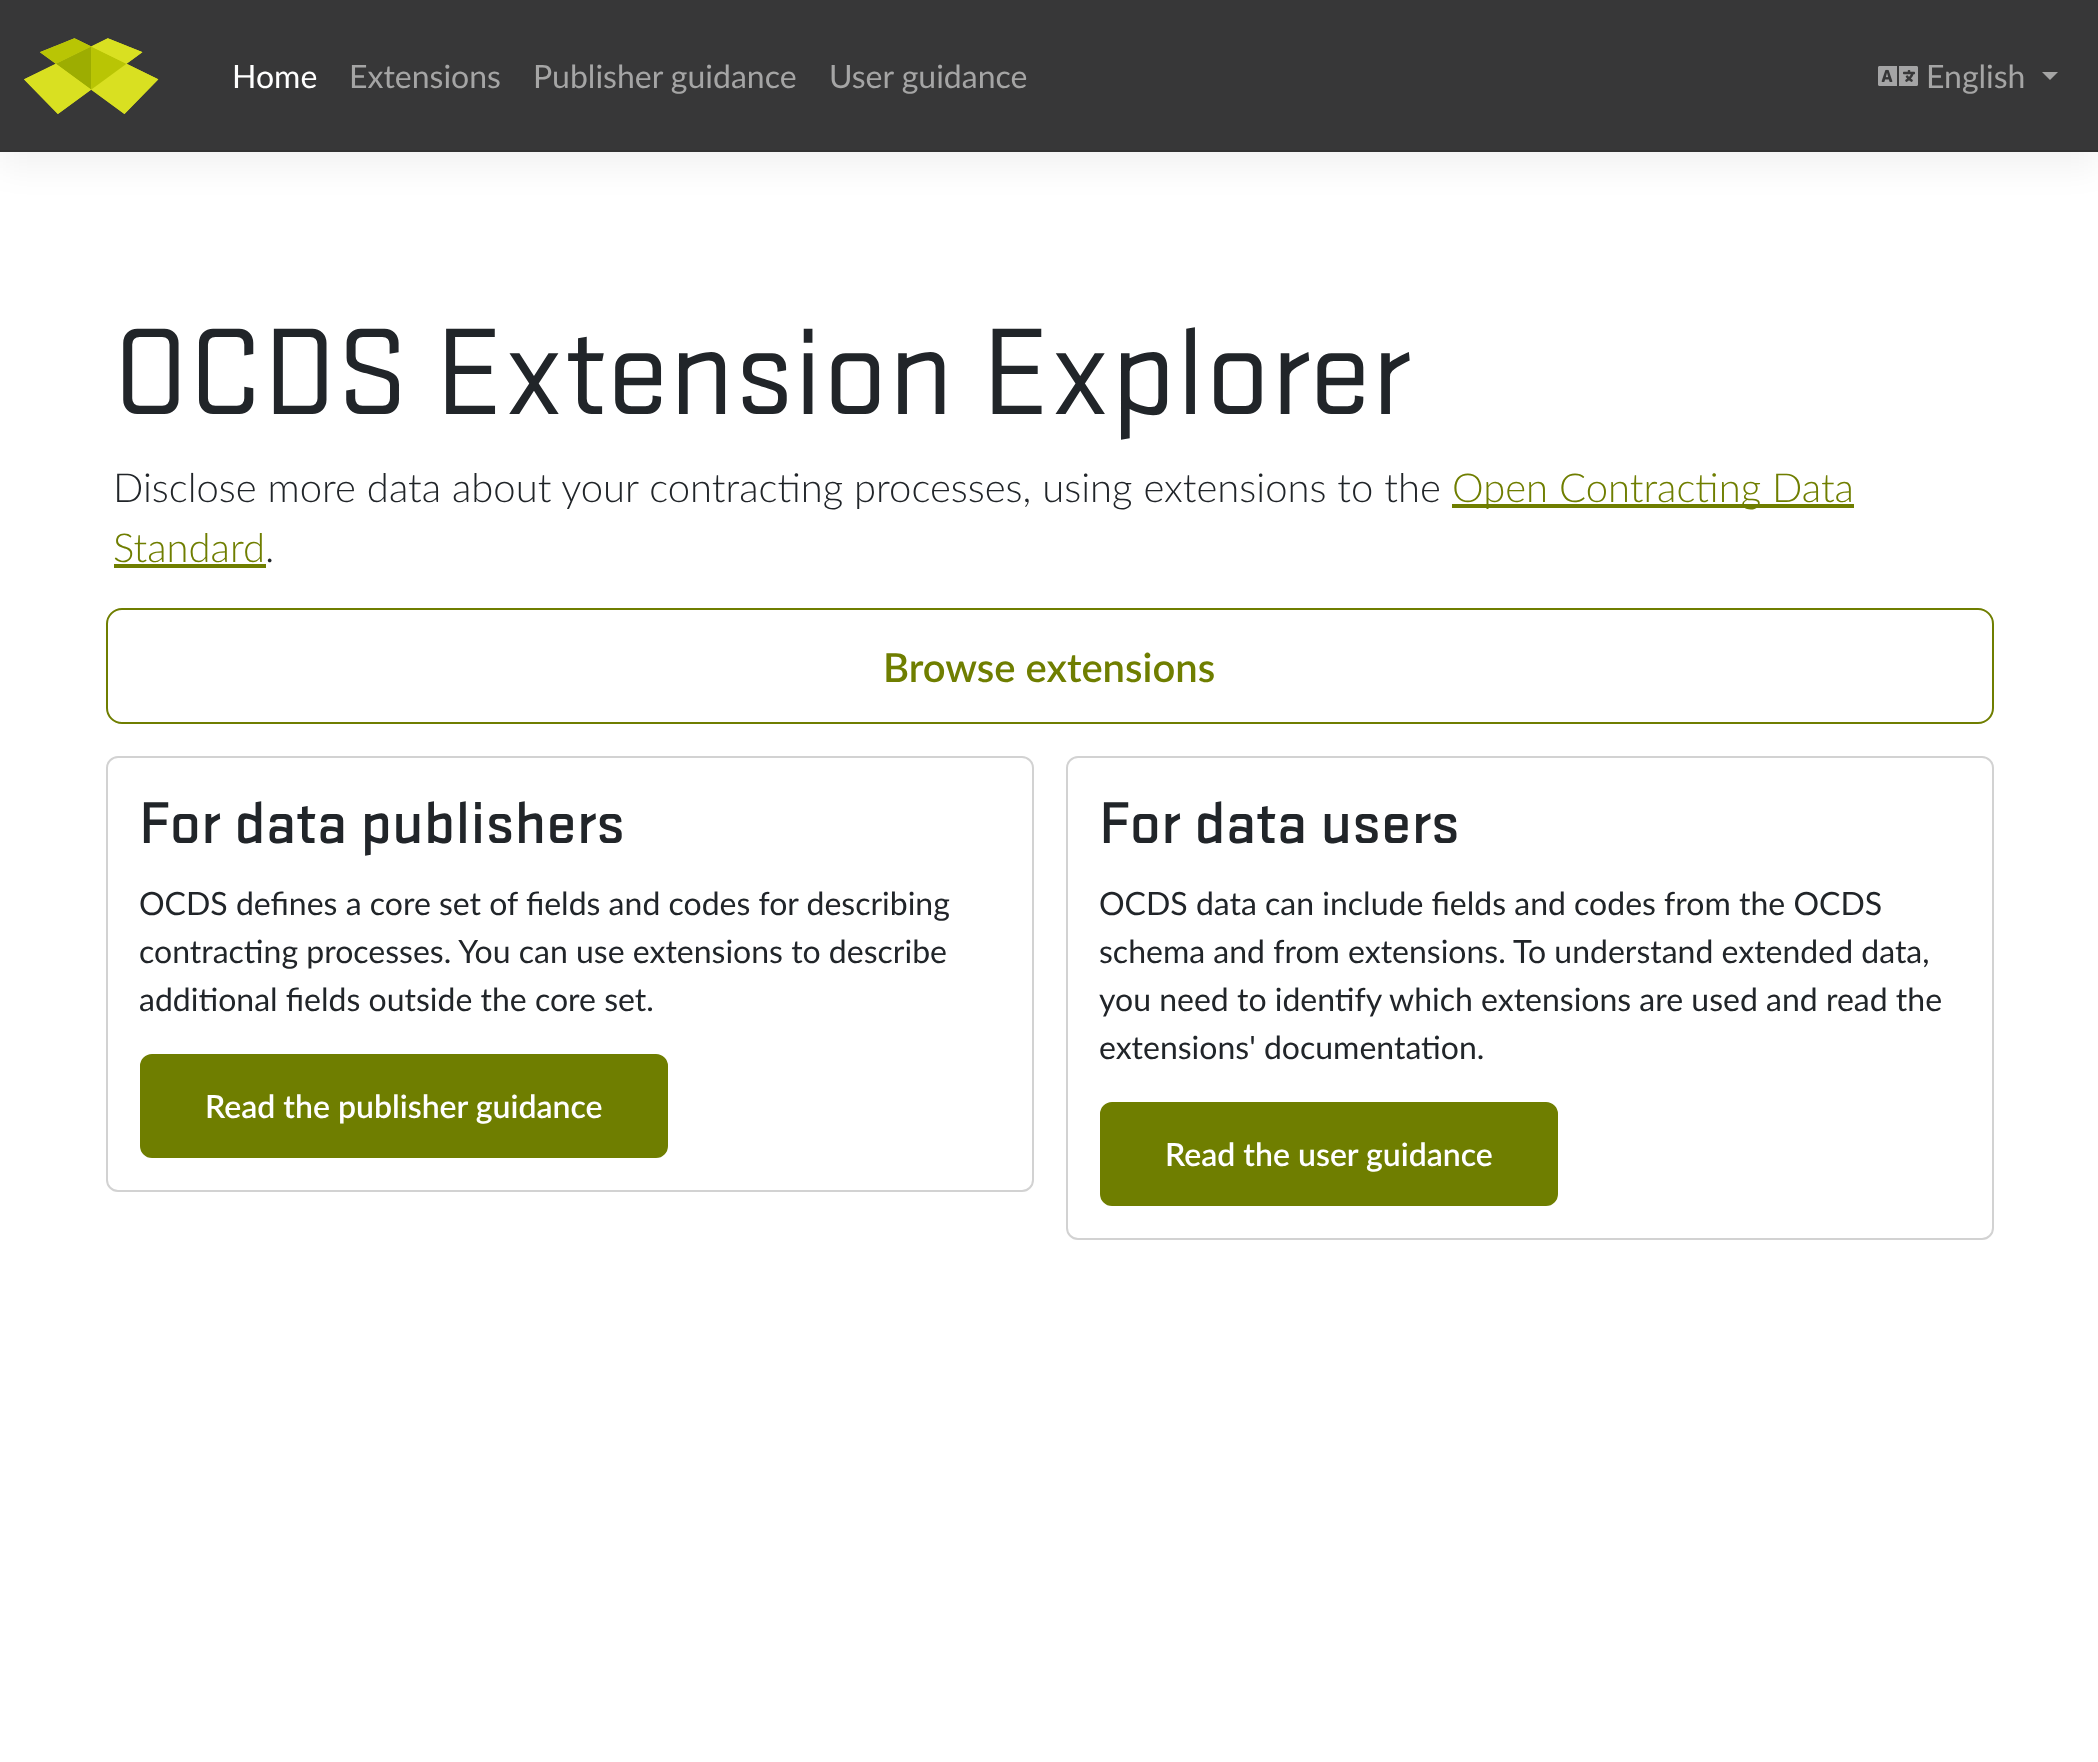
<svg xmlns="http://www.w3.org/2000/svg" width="2098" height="1762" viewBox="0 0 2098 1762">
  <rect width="100%" height="100%" fill="rgb(255,255,255)"/>
  <rect x="0" y="16" width="2098" height="152" fill="rgba(0,0,0,0.05)" filter="blur(16px)"/>
  <rect x="0" y="0" width="2098" height="150" fill="rgb(55,55,56)"/>
  <rect x="0" y="150" width="2098" height="2" fill="rgb(50,50,50)"/>
  <image x="24" y="38" width="135" height="76" href="pic1.png"/>
  <text x="232" y="88" font-family="Lato" font-size="32" fill="rgb(255,255,255)">Home</text>
  <g font-family="Lato" font-size="32" fill="rgb(165,165,165)">
    <text x="349" y="88">Extensions</text>
    <text x="533" y="88">Publisher guidance</text>
    <text x="829" y="88">User guidance</text>
  </g>
  <image x="1878" y="66" width="40" height="20" href="pic2.png"/>
  <text x="1926" y="88" font-family="Lato" font-size="32" fill="rgb(165,165,165)">English</text>
  <path d="M2042 72H2058L2050 80Z" fill="rgb(165,165,165)"/>
  <text x="113" y="414" font-family="'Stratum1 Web'" font-size="128" fill="rgb(33,37,41)">OCDS Extension Explorer</text>
  <text x="113" y="502" font-family="Lato" font-size="40" font-weight="300" fill="rgb(33,37,41)">Disclose more data about your contracting processes, using extensions to the</text>
  <rect x="1452" y="504" width="402" height="4" fill="rgb(111,126,0)"/>
  <g font-family="Lato" font-size="40" font-weight="300" fill="rgb(111,126,0)">
    <text x="1452" y="502">Open Contracting Data</text>
    <text x="113" y="562">Standard</text>
  </g>
  <rect x="114" y="564" width="152" height="4" fill="rgb(111,126,0)"/>
  <text x="265" y="562" font-family="Lato" font-size="40" font-weight="300" fill="rgb(33,37,41)">.</text>
  <rect x="107" y="609" width="1886" height="114" rx="15" fill="none" stroke="rgb(111,126,0)" stroke-width="2"/>
  <text x="883" y="682" font-family="Lato" font-size="40" font-weight="600" fill="rgb(111,126,0)">Browse extensions</text>
  <rect x="107" y="757" width="926" height="434" rx="11" fill="none" stroke="rgb(210,210,210)" stroke-width="2"/>
  <text x="139" y="843" font-family="'Stratum1 Web'" font-size="61.25" font-weight="500" fill="rgb(33,37,41)">For data publishers</text>
  <g font-family="Lato" font-size="32" fill="rgb(33,37,41)">
    <text>
      <tspan x="139" y="915">OCDS defines a core set of fields and codes for describing</tspan>
      <tspan x="139" y="963">contracting processes. You can use extensions to describe</tspan>
      <tspan x="139" y="1011">additional fields outside the core set.</tspan>
    </text>
  </g>
  <rect x="141" y="1055" width="526" height="102" rx="11" fill="rgb(111,126,0)" stroke="rgb(111,126,0)" stroke-width="2"/>
  <text x="205" y="1118" font-family="Lato" font-size="32" font-weight="600" fill="rgb(255,255,255)">Read the publisher guidance</text>
  <rect x="1067" y="757" width="926" height="482" rx="11" fill="none" stroke="rgb(210,210,210)" stroke-width="2"/>
  <text x="1099" y="843" font-family="'Stratum1 Web'" font-size="61.25" font-weight="500" fill="rgb(33,37,41)">For data users</text>
  <g font-family="Lato" font-size="32" fill="rgb(33,37,41)">
    <text>
      <tspan x="1099" y="915">OCDS data can include fields and codes from the OCDS</tspan>
      <tspan x="1099" y="963">schema and from extensions. To understand extended data,</tspan>
      <tspan x="1099" y="1011">you need to identify which extensions are used and read the</tspan>
      <tspan x="1099" y="1059">extensions' documentation.</tspan>
    </text>
  </g>
  <rect x="1101" y="1103" width="456" height="102" rx="11" fill="rgb(111,126,0)" stroke="rgb(111,126,0)" stroke-width="2"/>
  <text x="1165" y="1166" font-family="Lato" font-size="32" font-weight="600" fill="rgb(255,255,255)">Read the user guidance</text>
</svg>
